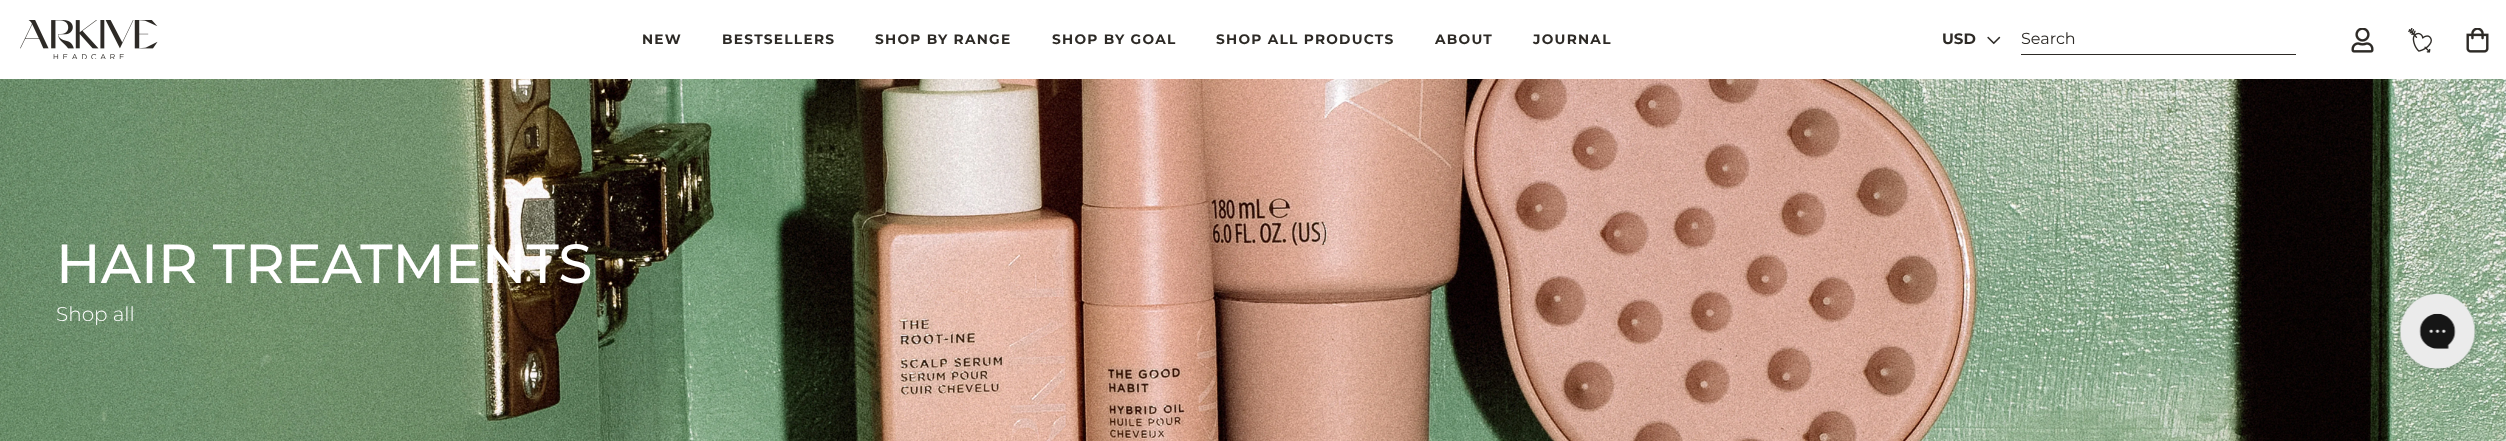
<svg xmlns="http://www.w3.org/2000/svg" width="2506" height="441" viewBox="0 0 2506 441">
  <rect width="100%" height="100%" fill="rgb(255,255,255)"/>
  <image x="20" y="20" width="138" height="39" href="pic1.png"/>
  <g font-family="Montserrat" font-size="13.75" font-weight="bold" letter-spacing="1.25" fill="rgb(45,42,38)">
    <text x="642" y="44">NEW</text>
    <text x="722" y="44">BESTSELLERS</text>
    <text x="875" y="44">SHOP BY RANGE</text>
    <text x="1052" y="44">SHOP BY GOAL</text>
    <text x="1216" y="44">SHOP ALL PRODUCTS</text>
    <text x="1435" y="44">ABOUT</text>
    <text x="1533" y="44">JOURNAL</text>
  </g>
  <text x="1942" y="44" font-family="Montserrat" font-size="15" font-weight="bold" fill="rgb(45,42,38)">USD</text>
  <image x="1987" y="36" width="14" height="9" href="pic2.png"/>
  <rect x="2021" y="54" width="275" height="1" fill="rgb(45,42,38)"/>
  <text x="2021" y="44" font-family="Montserrat" font-size="16" font-weight="100" fill="rgb(45,42,38)">Search</text>
  <image x="2351" y="28" width="23" height="25" href="pic3.png"/>
  <image x="2408" y="28" width="24" height="25" href="pic4.png"/>
  <image x="2466" y="28" width="23" height="25" href="pic5.png"/>
  <image x="0" y="79" width="2506" height="362" href="pic6.png"/>
  <text x="56" y="283" font-family="Montserrat" font-size="55" font-weight="500" fill="rgb(255,255,255)">HAIR TREATMENTS</text>
  <text x="56" y="321" font-family="Montserrat" font-size="20" font-weight="300" fill="rgb(255,255,255)">Shop all</text>
  <image x="2397" y="294" width="81" height="80" href="pic7.png"/>
</svg>
